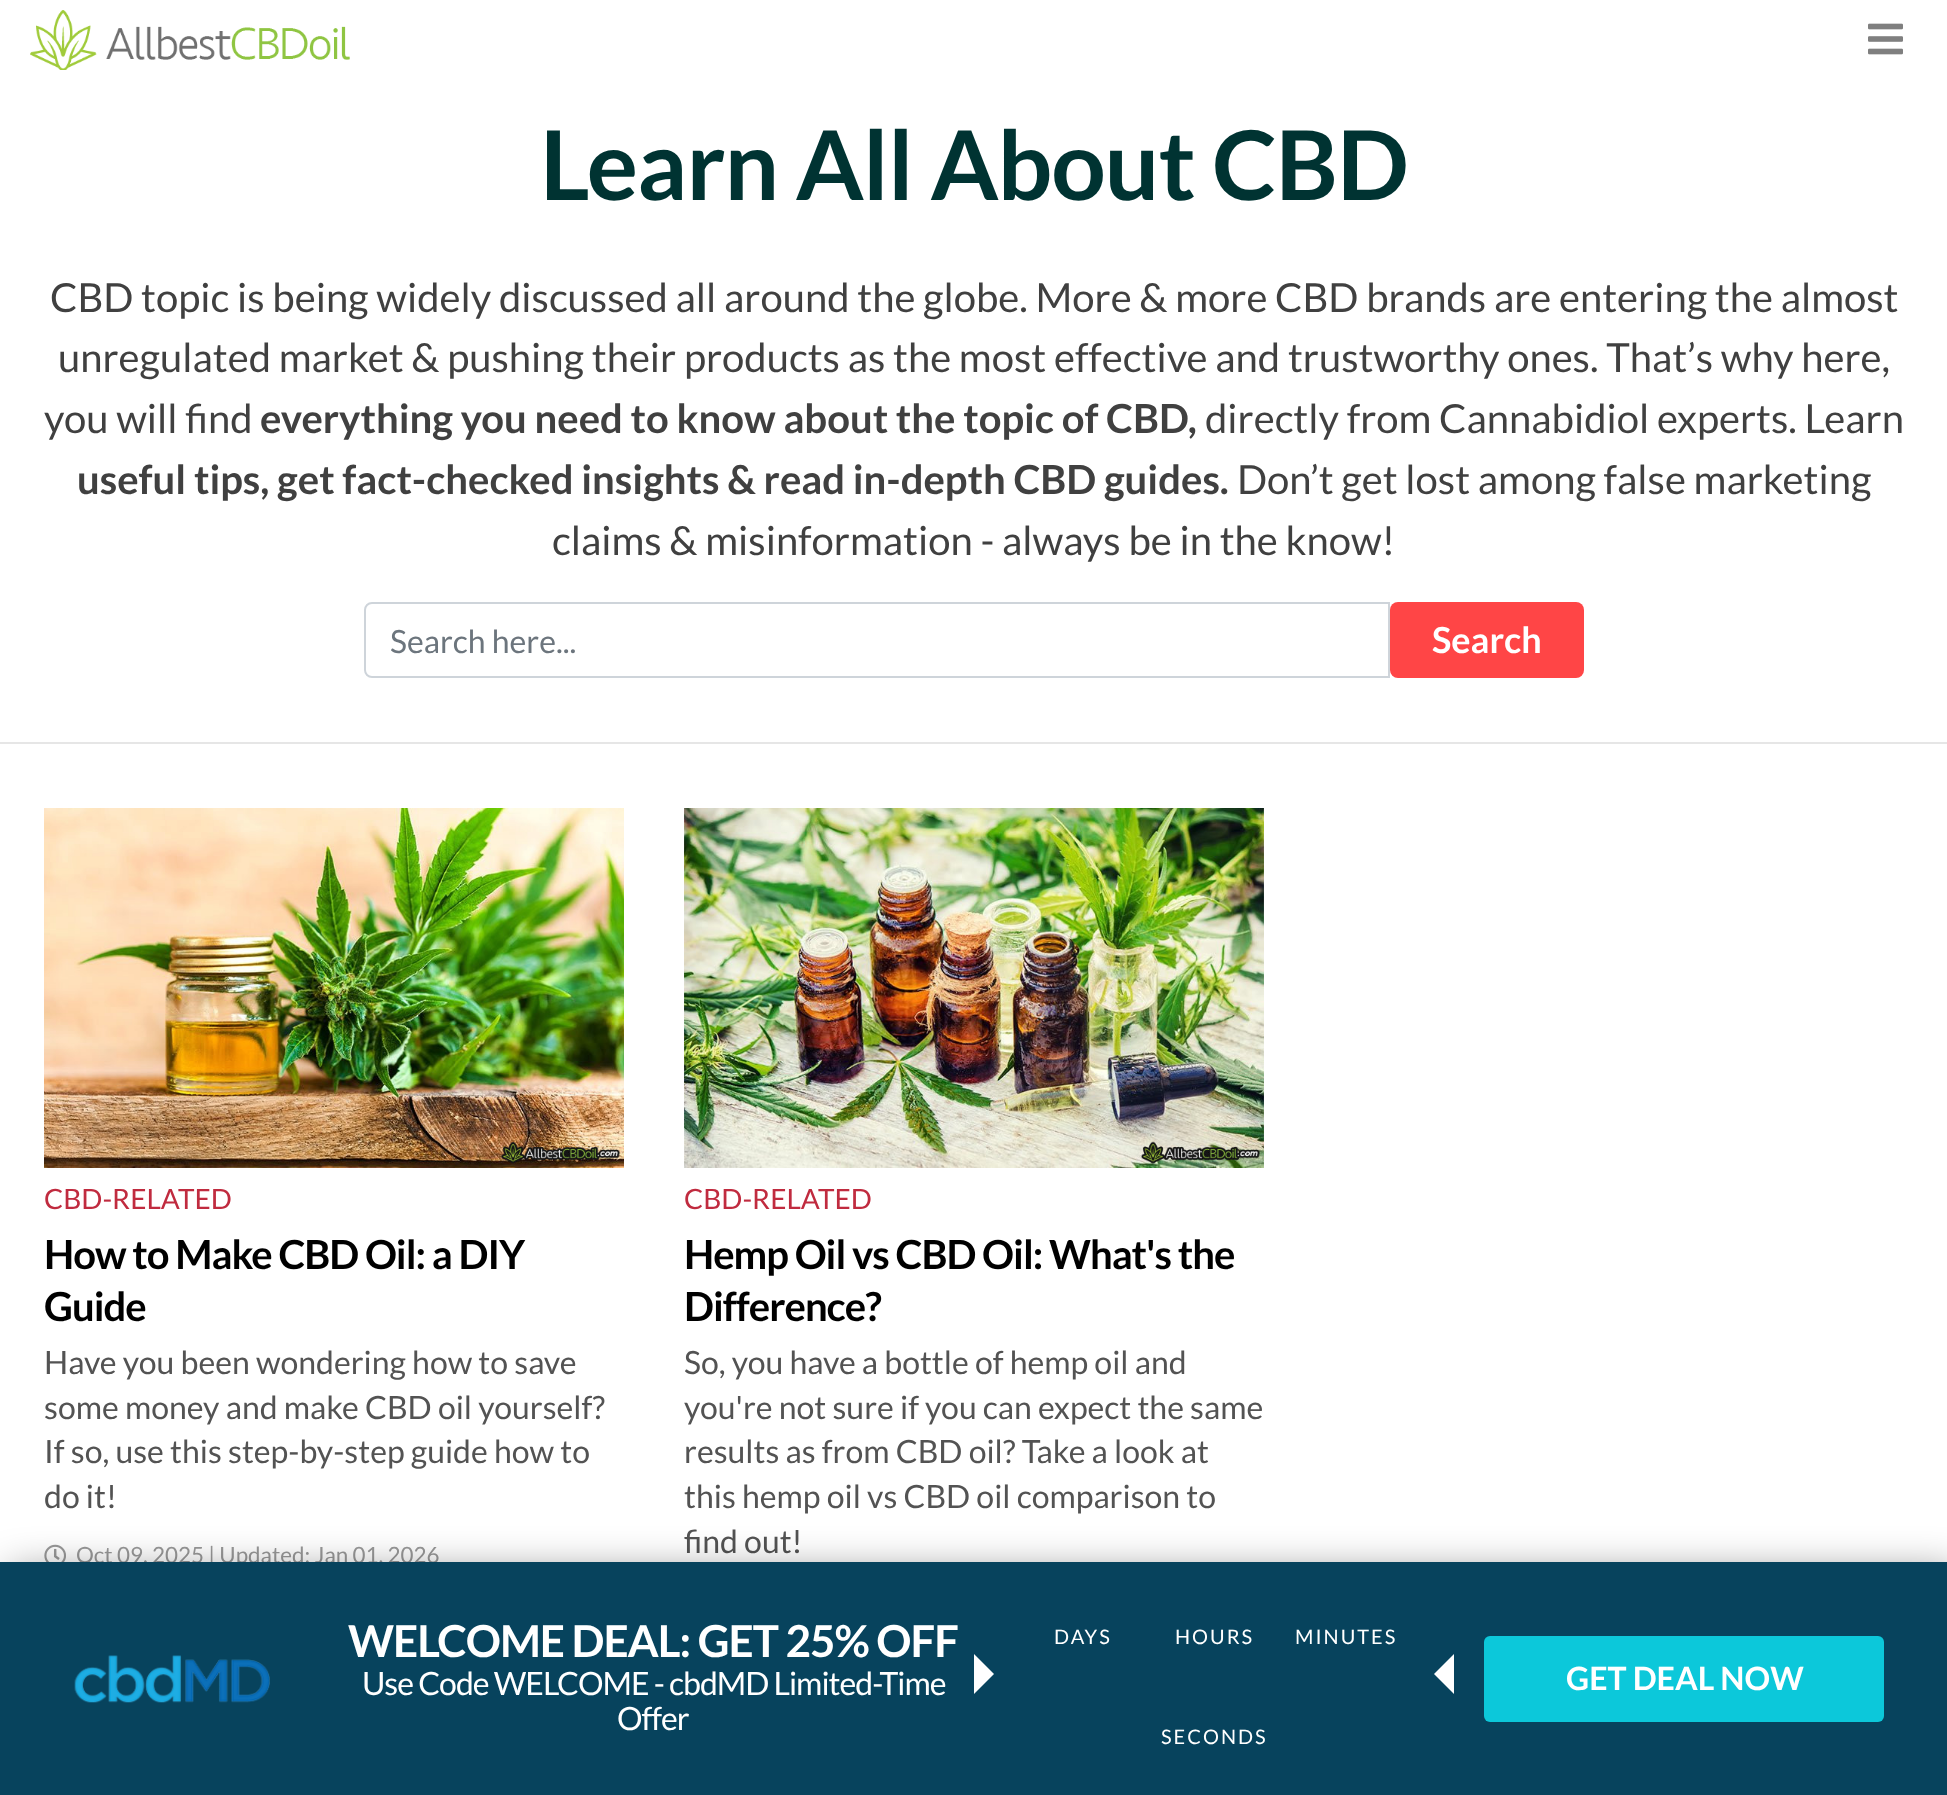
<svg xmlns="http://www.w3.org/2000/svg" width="1947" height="1795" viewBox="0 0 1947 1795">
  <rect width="100%" height="100%" fill="rgb(255,255,255)"/>
  <image x="30" y="10" width="320" height="60" href="pic1.png"/>
  <image x="1868" y="23" width="35" height="32" href="pic2.png"/>
  <text x="540" y="200" font-family="Lato" font-size="96" font-weight="bold" letter-spacing="-1" fill="rgb(0,51,50)">Learn All About CBD</text>
  <g font-family="Lato" font-size="40" fill="rgb(64,64,64)">
    <text x="50" y="312">CBD topic is being widely discussed all around the globe. More &amp; more CBD brands are entering the almost</text>
    <text x="58" y="372">unregulated market &amp; pushing their products as the most effective and trustworthy ones. That’s why here,</text>
    <text x="44" y="433">you will find</text>
  </g>
  <text x="260" y="433" font-family="Lato" font-size="40" font-weight="bold" fill="rgb(64,64,64)">everything you need to know about the topic of CBD,</text>
  <text x="1205" y="433" font-family="Lato" font-size="40" fill="rgb(64,64,64)">directly from Cannabidiol experts. Learn</text>
  <text x="77" y="494" font-family="Lato" font-size="40" font-weight="bold" fill="rgb(64,64,64)">useful tips, get fact-checked insights &amp; read in-depth CBD guides.</text>
  <g font-family="Lato" font-size="40" fill="rgb(64,64,64)">
    <text x="1237" y="494">Don’t get lost among false marketing</text>
    <text x="552" y="555">claims &amp; misinformation - always be in the know!</text>
  </g>
  <path d="M372 603H1389V677H372C368 677 365 674 365 670V610C365 606 368 603 372 603Z" fill="none" stroke="rgb(206,212,218)" stroke-width="2"/>
  <text x="390" y="653" font-family="Lato" font-size="32" fill="rgb(108,117,125)">Search here...</text>
  <rect x="1390" y="602" width="194" height="76" rx="8" fill="rgb(255,69,70)"/>
  <text x="1432" y="653" font-family="Lato" font-size="36" font-weight="bold" fill="rgb(255,255,255)">Search</text>
  <rect x="0" y="742" width="1947" height="2" fill="rgb(230,230,230)"/>
  <image x="44" y="808" width="580" height="360" href="pic3.png"/>
  <text x="44" y="1209" font-family="Lato" font-size="28" fill="rgb(192,43,63)">CBD-RELATED</text>
  <g font-family="Lato" font-size="40" font-weight="bold" letter-spacing="-1" fill="rgb(0,0,0)">
    <text>
      <tspan x="44" y="1269">How to Make CBD Oil: a DIY</tspan>
      <tspan x="44" y="1321">Guide</tspan>
    </text>
  </g>
  <g font-family="Lato" font-size="32" fill="rgb(83,83,83)">
    <text>
      <tspan x="44" y="1374">Have you been wondering how to save</tspan>
      <tspan x="44" y="1419">some money and make CBD oil yourself?</tspan>
      <tspan x="44" y="1463">If so, use this step-by-step guide how to</tspan>
      <tspan x="44" y="1508">do it!</tspan>
    </text>
  </g>
  <image x="44" y="1544" width="22" height="18" href="pic4.png"/>
  <text x="76" y="1563" font-family="Lato" font-size="22.4" fill="rgb(153,153,153)">Oct 09, 2025 | Updated: Jan 01, 2026</text>
  <image x="684" y="808" width="580" height="360" href="pic5.png"/>
  <text x="684" y="1209" font-family="Lato" font-size="28" fill="rgb(192,43,63)">CBD-RELATED</text>
  <g font-family="Lato" font-size="40" font-weight="bold" letter-spacing="-1" fill="rgb(0,0,0)">
    <text>
      <tspan x="684" y="1269">Hemp Oil vs CBD Oil: What's the</tspan>
      <tspan x="684" y="1321">Difference?</tspan>
    </text>
  </g>
  <g font-family="Lato" font-size="32" fill="rgb(83,83,83)">
    <text>
      <tspan x="684" y="1374">So, you have a bottle of hemp oil and</tspan>
      <tspan x="684" y="1419">you're not sure if you can expect the same</tspan>
      <tspan x="684" y="1463">results as from CBD oil? Take a look at</tspan>
      <tspan x="684" y="1508">this hemp oil vs CBD oil comparison to</tspan>
      <tspan x="684" y="1553">find out!</tspan>
    </text>
  </g>
  <rect x="10" y="1572" width="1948" height="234" fill="rgba(0,0,0,0.45)" filter="blur(20px)"/>
  <rect x="0" y="1562" width="1947" height="233" fill="rgb(7,67,93)"/>
  <image x="74" y="1655" width="196" height="48" href="pic6.png"/>
  <text x="348" y="1657" font-family="Lato" font-size="44" font-weight="bold" letter-spacing="-1" fill="rgb(255,255,255)">WELCOME DEAL: GET 25% OFF</text>
  <g font-family="Lato" font-size="32" letter-spacing="-1" fill="rgb(255,255,255)">
    <text x="362" y="1695">Use Code WELCOME - cbdMD Limited-Time</text>
    <text x="617" y="1730">Offer</text>
  </g>
  <g font-family="Lato" font-size="20" letter-spacing="2" fill="rgb(255,255,255)">
    <text x="1054" y="1644">DAYS</text>
    <text x="1175" y="1644">HOURS</text>
    <text x="1295" y="1644">MINUTES</text>
  </g>
  <path d="M974 1694V1654L994 1674Z" fill="rgb(255,255,255)"/>
  <path d="M1454 1654V1694L1434 1674Z" fill="rgb(255,255,255)"/>
  <text x="1161" y="1744" font-family="Lato" font-size="20" letter-spacing="2" fill="rgb(255,255,255)">SECONDS</text>
  <rect x="1484" y="1636" width="400" height="86" rx="6" fill="rgb(12,200,218)"/>
  <text x="1566" y="1690" font-family="Lato" font-size="32" font-weight="bold" fill="rgb(255,255,255)">GET DEAL NOW</text>
</svg>
